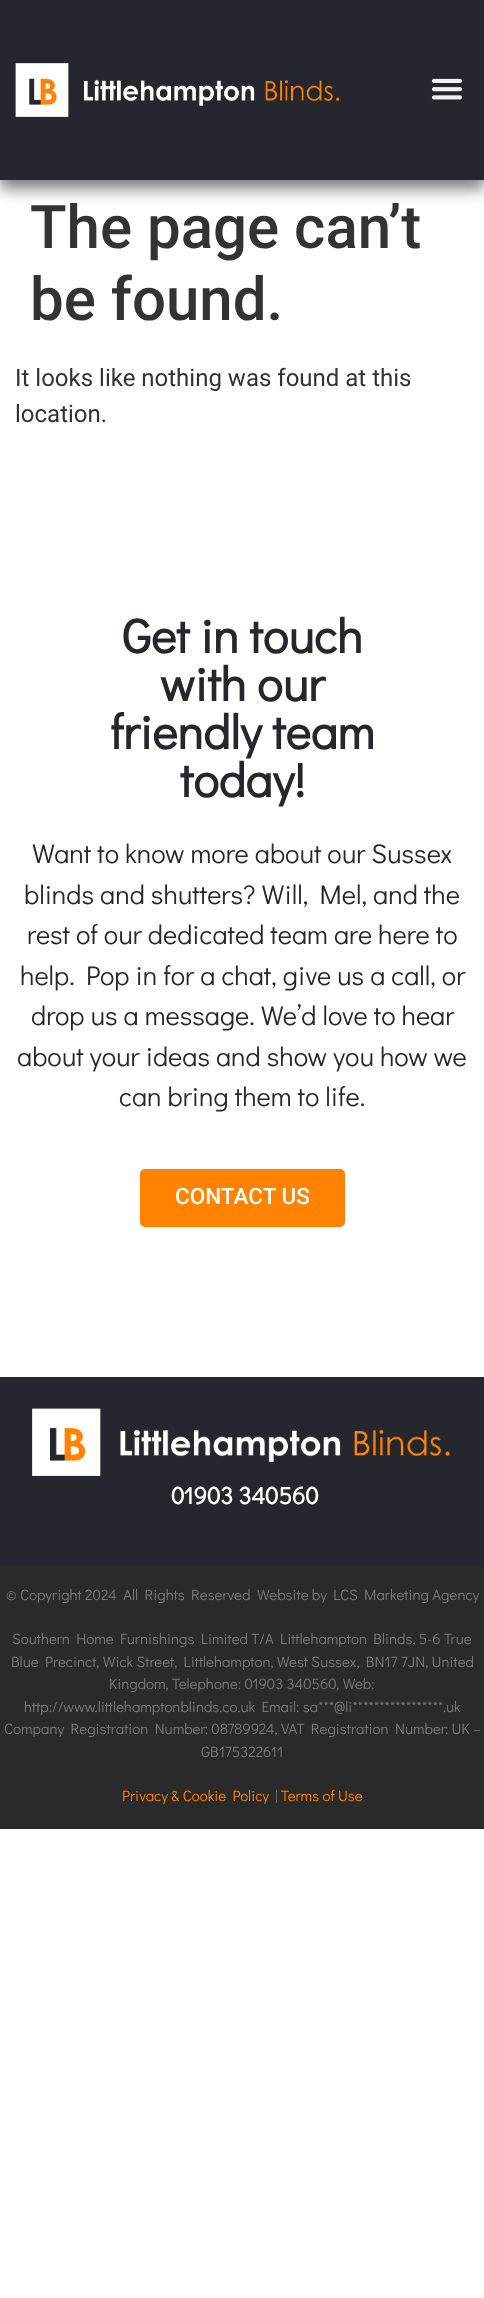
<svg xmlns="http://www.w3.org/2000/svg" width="484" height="2298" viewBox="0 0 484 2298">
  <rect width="100%" height="100%" fill="rgb(255,255,255)"/>
  <rect x="0" y="9" width="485" height="180" fill="rgba(0,0,0,0.5)" filter="blur(7.5px)"/>
  <rect x="0" y="0" width="484" height="180" fill="rgb(36,39,45)"/>
  <image x="15" y="63" width="325" height="54" href="pic1.png"/>
  <image x="431" y="78" width="32" height="22" href="pic2.png"/>
  <g font-family="Roboto" font-size="60" font-weight="500" fill="rgb(51,51,51)">
    <text>
      <tspan x="30" y="248">The page can’t</tspan>
      <tspan x="30" y="320">be found.</tspan>
    </text>
  </g>
  <g font-family="Roboto" font-size="24" fill="rgb(51,51,51)">
    <text>
      <tspan x="15" y="386">It looks like nothing was found at this</tspan>
      <tspan x="15" y="422">location.</tspan>
    </text>
  </g>
  <g font-family="Didact Gothic" font-size="48" font-weight="bold" fill="rgb(36,39,45)">
    <text x="122" y="653">Get in touch</text>
    <text x="160" y="701">with our</text>
    <text x="110" y="749">friendly team</text>
    <text x="180" y="797">today!</text>
  </g>
  <g font-family="Didact Gothic" font-size="27" fill="rgb(36,39,45)">
    <text x="32" y="863">Want to know more about our Sussex</text>
    <text x="24" y="904">blinds and shutters? Will, Mel, and the</text>
    <text x="27" y="944">rest of our dedicated team are here to</text>
    <text x="20" y="985">help. Pop in for a chat, give us a call, or</text>
    <text x="31" y="1025">drop us a message. We’d love to hear</text>
    <text x="17" y="1066">about your ideas and show you how we</text>
    <text x="119" y="1106">can bring them to life.</text>
  </g>
  <rect x="140" y="1169" width="205" height="58" rx="5" fill="rgb(255,130,0)"/>
  <text x="175" y="1204" font-family="Roboto" font-size="22.5" font-weight="500" fill="rgb(255,255,255)">CONTACT US</text>
  <rect x="0" y="1377" width="484" height="189" fill="rgb(36,39,45)"/>
  <image x="32" y="1408" width="418" height="68" href="pic3.png"/>
  <text x="171" y="1504" font-family="Didact Gothic" font-size="24" font-weight="bold" fill="rgb(255,255,255)">01903 340560</text>
  <rect x="0" y="1566" width="484" height="263" fill="rgb(42,42,43)"/>
  <g font-family="Didact Gothic" font-size="15" fill="rgb(122,122,122)">
    <text x="6" y="1600" xml:space="preserve">© Copyright 2024  All Rights Reserved  Website by LCS Marketing Agency</text>
    <text x="12" y="1644">Southern Home Furnishings Limited T/A Littlehampton Blinds, 5-6 True</text>
    <text x="11" y="1667">Blue Precinct, Wick Street, Littlehampton, West Sussex, BN17 7JN, United</text>
    <text x="109" y="1689">Kingdom, Telephone: 01903 340560, Web:</text>
    <text x="24" y="1712">http://www.littlehamptonblinds.co.uk Email: sa***@li*****************.</text>
    <text x="446" y="1712">uk</text>
    <text x="4" y="1734">Company Registration Number: 08789924, VAT Registration Number: UK –</text>
    <text x="201" y="1757">GB175322611</text>
  </g>
  <text x="122" y="1801" font-family="Didact Gothic" font-size="15" fill="rgb(255,130,0)">Privacy &amp; Cookie Policy</text>
  <text x="275" y="1801" font-family="Didact Gothic" font-size="15" fill="rgb(122,122,122)">|</text>
  <text x="281" y="1801" font-family="Didact Gothic" font-size="15" fill="rgb(255,130,0)">Terms of Use</text>
</svg>
